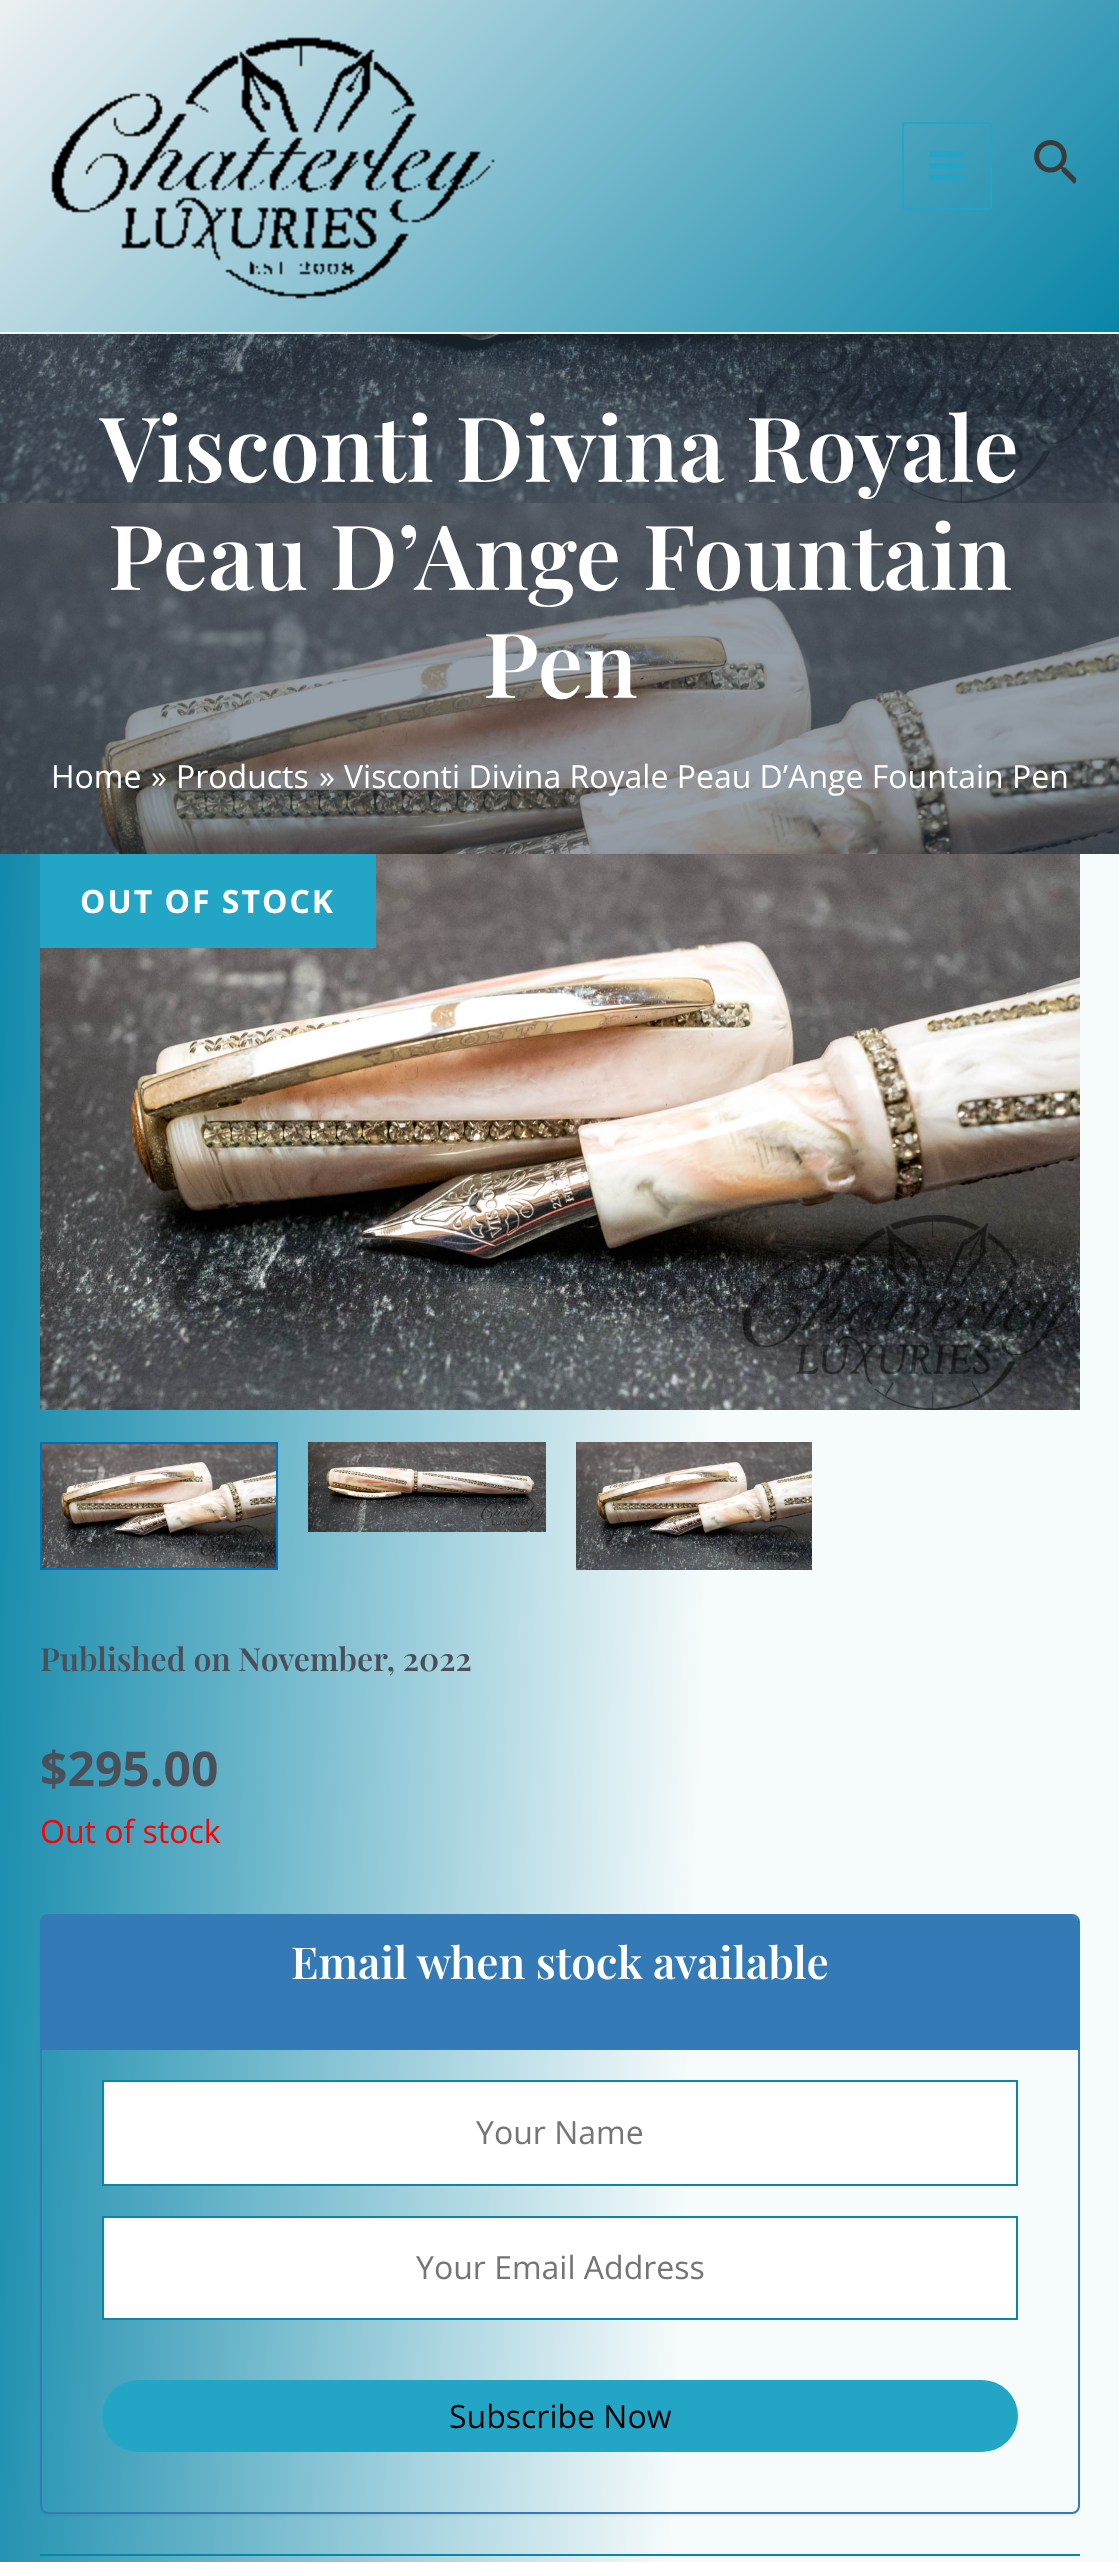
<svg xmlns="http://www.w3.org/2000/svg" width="1119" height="2562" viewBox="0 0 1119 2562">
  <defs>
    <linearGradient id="g1" gradientUnits="userSpaceOnUse" x1="-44" y1="1260" x2="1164" y2="1302"><stop offset="0" stop-color="rgb(9,133,168)"/><stop offset="0.63" stop-color="rgb(246,251,251)"/></linearGradient>
    <linearGradient id="g2" gradientUnits="userSpaceOnUse" x1="197" y1="-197" x2="923" y2="529"><stop offset="0" stop-color="rgb(236,240,242)"/><stop offset="1" stop-color="rgb(9,133,168)"/></linearGradient>
    <clipPath id="clip1"><path d="M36 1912H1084V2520H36ZM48 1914H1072C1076.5 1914 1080 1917.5 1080 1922V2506C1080 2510.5 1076.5 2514 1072 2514H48C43.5 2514 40 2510.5 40 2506V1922C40 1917.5 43.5 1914 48 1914Z" clip-rule="evenodd"/></clipPath>
  </defs>
  <rect width="100%" height="100%" fill="rgb(255,255,255)"/>
  <rect x="0" y="854" width="1119" height="1708" fill="url(#g1)"/>
  <rect x="0" y="0" width="1119" height="332" fill="url(#g2)"/>
  <rect x="0" y="332" width="1119" height="2" fill="rgb(242,245,247)"/>
  <image x="51" y="37" width="444" height="262" href="pic1.png"/>
  <rect x="903" y="123" width="88" height="86" rx="3" fill="none" stroke="rgb(35,166,198)" stroke-width="2"/>
  <image x="928" y="151" width="35" height="30" href="pic2.png"/>
  <image x="1034" y="140" width="42" height="44" href="pic3.png"/>
  <image x="0" y="334" width="1119" height="520" href="pic4.png"/>
  <g font-family="Playfair Display" font-size="90" font-weight="600" fill="rgb(255,255,255)">
    <text x="100" y="482">Visconti Divina Royale</text>
    <text x="108" y="590">Peau D’Ange Fountain</text>
    <text x="483" y="698">Pen</text>
  </g>
  <g font-family="Open Sans" font-size="32" fill="rgb(255,255,255)">
    <text x="51" y="788">Home</text>
    <text x="151" y="788">»</text>
    <text x="176" y="788">Products</text>
    <text x="319" y="788">»</text>
    <text x="344" y="788">Visconti Divina Royale Peau D’Ange Fountain Pen</text>
  </g>
  <image x="40" y="854" width="1040" height="556" href="pic5.png"/>
  <image x="42" y="1444" width="234" height="124" href="pic6.png"/>
  <rect x="41" y="1443" width="236" height="126" fill="none" stroke="rgb(1,112,185)" stroke-width="2"/>
  <image x="308" y="1442" width="238" height="90" href="pic7.png"/>
  <image x="576" y="1442" width="236" height="128" href="pic8.png"/>
  <rect x="40" y="854" width="336" height="94" fill="rgb(35,166,198)"/>
  <text x="80" y="913" font-family="Open Sans" font-size="32" font-weight="bold" letter-spacing="2" fill="rgb(255,255,255)">OUT OF STOCK</text>
  <text x="40" y="1671" font-family="Playfair Display" font-size="32" font-weight="600" fill="rgb(75,79,88)">Published on November, 2022</text>
  <text x="40" y="1786" font-family="Open Sans" font-size="48" font-weight="bold" fill="rgb(75,79,88)">$295.00</text>
  <text x="40" y="1843" font-family="Open Sans" font-size="32" fill="rgb(255,0,0)">Out of stock</text>
  <g clip-path="url(#clip1)">
    <rect x="40" y="1916" width="1040" height="600" rx="8" fill="rgba(0,0,0,0.05)" filter="blur(1px)"/>
  </g>
  <rect x="41" y="1915" width="1038" height="598" rx="7" fill="none" stroke="rgb(51,122,183)" stroke-width="2"/>
  <path d="M48 1916H1072C1075.5 1916 1078 1918.5 1078 1922V2050H42V1922C42 1918.5 44.5 1916 48 1916Z" fill="rgb(51,122,183)"/>
  <text x="291" y="1979" font-family="Playfair Display" font-size="44" font-weight="600" fill="rgb(255,255,255)">Email when stock available</text>
  <rect x="103" y="2081" width="914" height="104" fill="rgb(255,255,255)" stroke="rgb(9,133,168)" stroke-width="2"/>
  <text x="476" y="2144" font-family="Open Sans" font-size="32" fill="rgb(117,117,117)">Your Name</text>
  <rect x="103" y="2217" width="914" height="102" fill="rgb(255,255,255)" stroke="rgb(9,133,168)" stroke-width="2"/>
  <text x="416" y="2279" font-family="Open Sans" font-size="32" fill="rgb(117,117,117)">Your Email Address</text>
  <rect x="102" y="2380" width="916" height="72" rx="36" fill="rgb(35,166,198)"/>
  <text x="449" y="2428" font-family="Open Sans" font-size="32" fill="rgb(0,0,0)">Subscribe Now</text>
  <rect x="40" y="2554" width="1040" height="2" fill="rgb(9,133,168)"/>
</svg>
